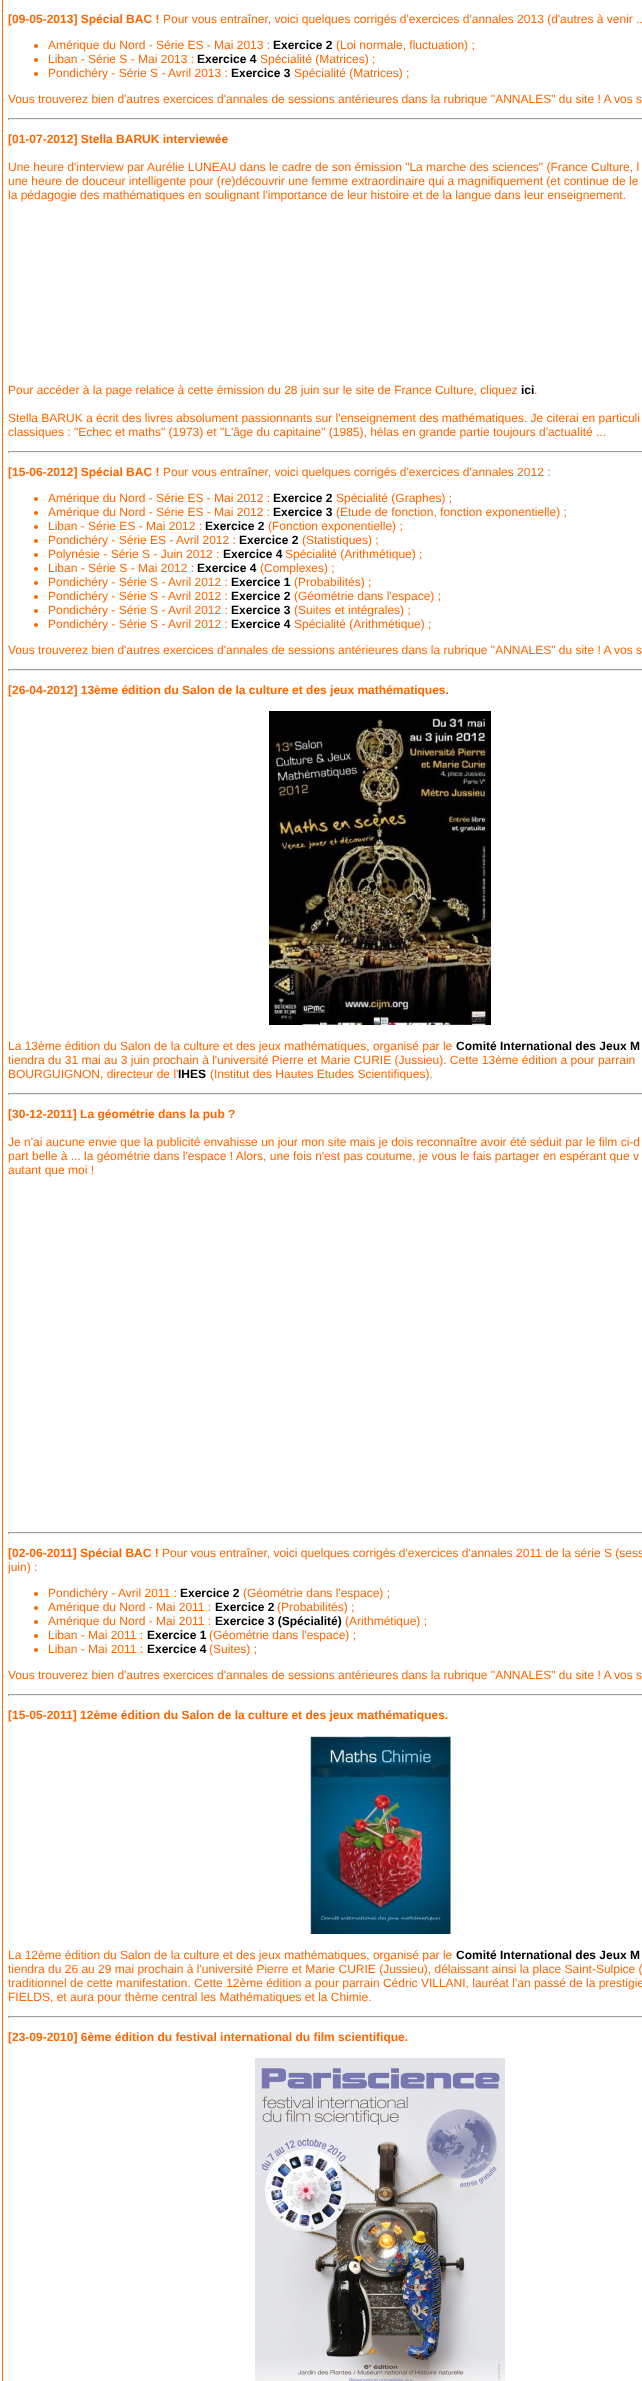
<svg xmlns="http://www.w3.org/2000/svg" width="642" height="2381" viewBox="0 0 642 2381">
  <rect width="100%" height="100%" fill="rgb(255,255,255)"/>
  <image x="0" y="0" width="2" height="2381" href="pic1.png"/>
  <rect x="2.5" y="-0.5" width="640" height="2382" fill="none" stroke="rgb(255,102,0)"/>
  <text x="8" y="23" font-family="Liberation Sans" font-size="12" font-weight="bold" fill="rgb(255,102,0)">[09-05-2013] Spécial BAC !</text>
  <text x="163" y="23" font-family="Liberation Sans" font-size="12" fill="rgb(255,102,0)">Pour vous entraîner, voici quelques corrigés d'exercices d'annales 2013 (d'autres à venir ..</text>
  <circle cx="36" cy="46" r="2" fill="rgb(255,102,0)"/>
  <text x="48" y="49" font-family="Liberation Sans" font-size="12" fill="rgb(255,102,0)">Amérique du Nord - Série ES - Mai 2013 :</text>
  <text x="273" y="49" font-family="Liberation Sans" font-size="12" font-weight="bold" fill="rgb(0,0,0)">Exercice 2</text>
  <text x="336" y="49" font-family="Liberation Sans" font-size="12" fill="rgb(255,102,0)">(Loi normale, fluctuation) ;</text>
  <circle cx="36" cy="60" r="2" fill="rgb(255,102,0)"/>
  <text x="48" y="63" font-family="Liberation Sans" font-size="12" fill="rgb(255,102,0)">Liban - Série S - Mai 2013 :</text>
  <text x="197" y="63" font-family="Liberation Sans" font-size="12" font-weight="bold" fill="rgb(0,0,0)">Exercice 4</text>
  <text x="260" y="63" font-family="Liberation Sans" font-size="12" fill="rgb(255,102,0)">Spécialité (Matrices) ;</text>
  <circle cx="36" cy="74" r="2" fill="rgb(255,102,0)"/>
  <text x="48" y="77" font-family="Liberation Sans" font-size="12" fill="rgb(255,102,0)">Pondichéry - Série S - Avril 2013 :</text>
  <text x="231" y="77" font-family="Liberation Sans" font-size="12" font-weight="bold" fill="rgb(0,0,0)">Exercice 3</text>
  <g font-family="Liberation Sans" font-size="12" fill="rgb(255,102,0)">
    <text x="294" y="77">Spécialité (Matrices) ;</text>
    <text x="8" y="103">Vous trouverez bien d'autres exercices d'annales de sessions antérieures dans la rubrique "ANNALES" du site ! A vos s</text>
  </g>
  <rect x="8" y="118" width="634" height="1" fill="rgb(159,159,159)"/>
  <rect x="8" y="119" width="634" height="1" fill="rgb(238,238,238)"/>
  <rect x="8" y="118" width="1" height="2" fill="rgb(159,159,159)"/>
  <text x="8" y="143" font-family="Liberation Sans" font-size="12" font-weight="bold" fill="rgb(255,102,0)">[01-07-2012] Stella BARUK interviewée</text>
  <g font-family="Liberation Sans" font-size="12" fill="rgb(255,102,0)">
    <text>
      <tspan x="8" y="171">Une heure d'interview par Aurélie LUNEAU dans le cadre de son émission "La marche des sciences" (France Culture, l</tspan>
      <tspan x="8" y="185">une heure de douceur intelligente pour (re)découvrir une femme extraordinaire qui a magnifiquement (et continue de le</tspan>
      <tspan x="8" y="199">la pédagogie des mathématiques en soulignant l'importance de leur histoire et de la langue dans leur enseignement.</tspan>
    </text>
    <text x="8" y="394">Pour accéder à la page relatice à cette émission du 28 juin sur le site de France Culture, cliquez</text>
  </g>
  <text x="521" y="394" font-family="Liberation Sans" font-size="12" font-weight="bold" fill="rgb(0,0,0)">ici</text>
  <g font-family="Liberation Sans" font-size="12" fill="rgb(255,102,0)">
    <text x="534" y="394">.</text>
    <text>
      <tspan x="8" y="422">Stella BARUK a écrit des livres absolument passionnants sur l'enseignement des mathématiques. Je citerai en particuli</tspan>
      <tspan x="8" y="436">classiques : "Echec et maths" (1973) et "L'âge du capitaine" (1985), hélas en grande partie toujours d'actualité ...</tspan>
    </text>
  </g>
  <rect x="8" y="451" width="634" height="1" fill="rgb(159,159,159)"/>
  <rect x="8" y="452" width="634" height="1" fill="rgb(238,238,238)"/>
  <rect x="8" y="451" width="1" height="2" fill="rgb(159,159,159)"/>
  <text x="8" y="476" font-family="Liberation Sans" font-size="12" font-weight="bold" fill="rgb(255,102,0)">[15-06-2012] Spécial BAC !</text>
  <text x="163" y="476" font-family="Liberation Sans" font-size="12" fill="rgb(255,102,0)">Pour vous entraîner, voici quelques corrigés d'exercices d'annales 2012 :</text>
  <circle cx="36" cy="499" r="2" fill="rgb(255,102,0)"/>
  <text x="48" y="502" font-family="Liberation Sans" font-size="12" fill="rgb(255,102,0)">Amérique du Nord - Série ES - Mai 2012 :</text>
  <text x="273" y="502" font-family="Liberation Sans" font-size="12" font-weight="bold" fill="rgb(0,0,0)">Exercice 2</text>
  <text x="336" y="502" font-family="Liberation Sans" font-size="12" fill="rgb(255,102,0)">Spécialité (Graphes) ;</text>
  <circle cx="36" cy="513" r="2" fill="rgb(255,102,0)"/>
  <text x="48" y="516" font-family="Liberation Sans" font-size="12" fill="rgb(255,102,0)">Amérique du Nord - Série ES - Mai 2012 :</text>
  <text x="273" y="516" font-family="Liberation Sans" font-size="12" font-weight="bold" fill="rgb(0,0,0)">Exercice 3</text>
  <text x="336" y="516" font-family="Liberation Sans" font-size="12" fill="rgb(255,102,0)">(Etude de fonction, fonction exponentielle) ;</text>
  <circle cx="36" cy="527" r="2" fill="rgb(255,102,0)"/>
  <text x="48" y="530" font-family="Liberation Sans" font-size="12" fill="rgb(255,102,0)">Liban - Série ES - Mai 2012 :</text>
  <text x="205" y="530" font-family="Liberation Sans" font-size="12" font-weight="bold" fill="rgb(0,0,0)">Exercice 2</text>
  <text x="268" y="530" font-family="Liberation Sans" font-size="12" fill="rgb(255,102,0)">(Fonction exponentielle) ;</text>
  <circle cx="36" cy="541" r="2" fill="rgb(255,102,0)"/>
  <text x="48" y="544" font-family="Liberation Sans" font-size="12" fill="rgb(255,102,0)">Pondichéry - Série ES - Avril 2012 :</text>
  <text x="239" y="544" font-family="Liberation Sans" font-size="12" font-weight="bold" fill="rgb(0,0,0)">Exercice 2</text>
  <text x="302" y="544" font-family="Liberation Sans" font-size="12" fill="rgb(255,102,0)">(Statistiques) ;</text>
  <circle cx="36" cy="555" r="2" fill="rgb(255,102,0)"/>
  <text x="48" y="558" font-family="Liberation Sans" font-size="12" fill="rgb(255,102,0)">Polynésie - Série S - Juin 2012 :</text>
  <text x="223" y="558" font-family="Liberation Sans" font-size="12" font-weight="bold" fill="rgb(0,0,0)">Exercice 4</text>
  <text x="285" y="558" font-family="Liberation Sans" font-size="12" fill="rgb(255,102,0)">Spécialité (Arithmétique) ;</text>
  <circle cx="36" cy="569" r="2" fill="rgb(255,102,0)"/>
  <text x="48" y="572" font-family="Liberation Sans" font-size="12" fill="rgb(255,102,0)">Liban - Série S - Mai 2012 :</text>
  <text x="197" y="572" font-family="Liberation Sans" font-size="12" font-weight="bold" fill="rgb(0,0,0)">Exercice 4</text>
  <text x="260" y="572" font-family="Liberation Sans" font-size="12" fill="rgb(255,102,0)">(Complexes) ;</text>
  <circle cx="36" cy="583" r="2" fill="rgb(255,102,0)"/>
  <text x="48" y="586" font-family="Liberation Sans" font-size="12" fill="rgb(255,102,0)">Pondichéry - Série S - Avril 2012 :</text>
  <text x="231" y="586" font-family="Liberation Sans" font-size="12" font-weight="bold" fill="rgb(0,0,0)">Exercice 1</text>
  <text x="294" y="586" font-family="Liberation Sans" font-size="12" fill="rgb(255,102,0)">(Probabilités) ;</text>
  <circle cx="36" cy="597" r="2" fill="rgb(255,102,0)"/>
  <text x="48" y="600" font-family="Liberation Sans" font-size="12" fill="rgb(255,102,0)">Pondichéry - Série S - Avril 2012 :</text>
  <text x="231" y="600" font-family="Liberation Sans" font-size="12" font-weight="bold" fill="rgb(0,0,0)">Exercice 2</text>
  <text x="294" y="600" font-family="Liberation Sans" font-size="12" fill="rgb(255,102,0)">(Géométrie dans l'espace) ;</text>
  <circle cx="36" cy="611" r="2" fill="rgb(255,102,0)"/>
  <text x="48" y="614" font-family="Liberation Sans" font-size="12" fill="rgb(255,102,0)">Pondichéry - Série S - Avril 2012 :</text>
  <text x="231" y="614" font-family="Liberation Sans" font-size="12" font-weight="bold" fill="rgb(0,0,0)">Exercice 3</text>
  <text x="294" y="614" font-family="Liberation Sans" font-size="12" fill="rgb(255,102,0)">(Suites et intégrales) ;</text>
  <circle cx="36" cy="625" r="2" fill="rgb(255,102,0)"/>
  <text x="48" y="628" font-family="Liberation Sans" font-size="12" fill="rgb(255,102,0)">Pondichéry - Série S - Avril 2012 :</text>
  <text x="231" y="628" font-family="Liberation Sans" font-size="12" font-weight="bold" fill="rgb(0,0,0)">Exercice 4</text>
  <g font-family="Liberation Sans" font-size="12" fill="rgb(255,102,0)">
    <text x="294" y="628">Spécialité (Arithmétique) ;</text>
    <text x="8" y="654">Vous trouverez bien d'autres exercices d'annales de sessions antérieures dans la rubrique "ANNALES" du site ! A vos s</text>
  </g>
  <rect x="8" y="669" width="634" height="1" fill="rgb(159,159,159)"/>
  <rect x="8" y="670" width="634" height="1" fill="rgb(238,238,238)"/>
  <rect x="8" y="669" width="1" height="2" fill="rgb(159,159,159)"/>
  <text x="8" y="694" font-family="Liberation Sans" font-size="12" font-weight="bold" fill="rgb(255,102,0)">[26-04-2012] 13ème édition du Salon de la culture et des jeux mathématiques.</text>
  <image x="269" y="711" width="222" height="314" href="pic2.png"/>
  <text x="8" y="1050" font-family="Liberation Sans" font-size="12" fill="rgb(255,102,0)">La 13ème édition du Salon de la culture et des jeux mathématiques, organisé par le</text>
  <text x="456" y="1050" font-family="Liberation Sans" font-size="12" font-weight="bold" fill="rgb(0,0,0)">Comité International des Jeux M</text>
  <g font-family="Liberation Sans" font-size="12" fill="rgb(255,102,0)">
    <text>
      <tspan x="8" y="1064">tiendra du 31 mai au 3 juin prochain à l'université Pierre et Marie CURIE (Jussieu). Cette 13ème édition a pour parrain</tspan>
      <tspan x="8" y="1078">BOURGUIGNON, directeur de l'</tspan>
    </text>
  </g>
  <text x="178" y="1078" font-family="Liberation Sans" font-size="12" font-weight="bold" fill="rgb(0,0,0)">IHES</text>
  <text x="210" y="1078" font-family="Liberation Sans" font-size="12" fill="rgb(255,102,0)">(Institut des Hautes Etudes Scientifiques).</text>
  <rect x="8" y="1093" width="634" height="1" fill="rgb(159,159,159)"/>
  <rect x="8" y="1094" width="634" height="1" fill="rgb(238,238,238)"/>
  <rect x="8" y="1093" width="1" height="2" fill="rgb(159,159,159)"/>
  <text x="8" y="1118" font-family="Liberation Sans" font-size="12" font-weight="bold" fill="rgb(255,102,0)">[30-12-2011] La géométrie dans la pub ?</text>
  <g font-family="Liberation Sans" font-size="12" fill="rgb(255,102,0)">
    <text>
      <tspan x="8" y="1146">Je n'ai aucune envie que la publicité envahisse un jour mon site mais je dois reconnaître avoir été séduit par le film ci-d</tspan>
      <tspan x="8" y="1160">part belle à ... la géométrie dans l'espace ! Alors, une fois n'est pas coutume, je vous le fais partager en espérant que v</tspan>
      <tspan x="8" y="1174">autant que moi !</tspan>
    </text>
  </g>
  <rect x="8" y="1532" width="634" height="1" fill="rgb(159,159,159)"/>
  <rect x="8" y="1533" width="634" height="1" fill="rgb(238,238,238)"/>
  <rect x="8" y="1532" width="1" height="2" fill="rgb(159,159,159)"/>
  <text x="8" y="1557" font-family="Liberation Sans" font-size="12" font-weight="bold" fill="rgb(255,102,0)">[02-06-2011] Spécial BAC !</text>
  <g font-family="Liberation Sans" font-size="12" fill="rgb(255,102,0)">
    <text x="162" y="1557">Pour vous entraîner, voici quelques corrigés d'exercices d'annales 2011 de la série S (sess</text>
    <text x="8" y="1571">juin) :</text>
  </g>
  <circle cx="36" cy="1594" r="2" fill="rgb(255,102,0)"/>
  <text x="48" y="1597" font-family="Liberation Sans" font-size="12" fill="rgb(255,102,0)">Pondichéry - Avril 2011 :</text>
  <text x="180" y="1597" font-family="Liberation Sans" font-size="12" font-weight="bold" fill="rgb(0,0,0)">Exercice 2</text>
  <text x="243" y="1597" font-family="Liberation Sans" font-size="12" fill="rgb(255,102,0)">(Géométrie dans l'espace) ;</text>
  <circle cx="36" cy="1608" r="2" fill="rgb(255,102,0)"/>
  <text x="48" y="1611" font-family="Liberation Sans" font-size="12" fill="rgb(255,102,0)">Amérique du Nord - Mai 2011 :</text>
  <text x="215" y="1611" font-family="Liberation Sans" font-size="12" font-weight="bold" fill="rgb(0,0,0)">Exercice 2</text>
  <text x="277" y="1611" font-family="Liberation Sans" font-size="12" fill="rgb(255,102,0)">(Probabilités) ;</text>
  <circle cx="36" cy="1622" r="2" fill="rgb(255,102,0)"/>
  <text x="48" y="1625" font-family="Liberation Sans" font-size="12" fill="rgb(255,102,0)">Amérique du Nord - Mai 2011 :</text>
  <text x="215" y="1625" font-family="Liberation Sans" font-size="12" font-weight="bold" fill="rgb(0,0,0)">Exercice 3 (Spécialité)</text>
  <text x="345" y="1625" font-family="Liberation Sans" font-size="12" fill="rgb(255,102,0)">(Arithmétique) ;</text>
  <circle cx="36" cy="1636" r="2" fill="rgb(255,102,0)"/>
  <text x="48" y="1639" font-family="Liberation Sans" font-size="12" fill="rgb(255,102,0)">Liban - Mai 2011 :</text>
  <text x="147" y="1639" font-family="Liberation Sans" font-size="12" font-weight="bold" fill="rgb(0,0,0)">Exercice 1</text>
  <text x="209" y="1639" font-family="Liberation Sans" font-size="12" fill="rgb(255,102,0)">(Géométrie dans l'espace) ;</text>
  <circle cx="36" cy="1650" r="2" fill="rgb(255,102,0)"/>
  <text x="48" y="1653" font-family="Liberation Sans" font-size="12" fill="rgb(255,102,0)">Liban - Mai 2011 :</text>
  <text x="147" y="1653" font-family="Liberation Sans" font-size="12" font-weight="bold" fill="rgb(0,0,0)">Exercice 4</text>
  <g font-family="Liberation Sans" font-size="12" fill="rgb(255,102,0)">
    <text x="209" y="1653">(Suites) ;</text>
    <text x="8" y="1679">Vous trouverez bien d'autres exercices d'annales de sessions antérieures dans la rubrique "ANNALES" du site ! A vos s</text>
  </g>
  <rect x="8" y="1694" width="634" height="1" fill="rgb(159,159,159)"/>
  <rect x="8" y="1695" width="634" height="1" fill="rgb(238,238,238)"/>
  <rect x="8" y="1694" width="1" height="2" fill="rgb(159,159,159)"/>
  <text x="8" y="1719" font-family="Liberation Sans" font-size="12" font-weight="bold" fill="rgb(255,102,0)">[15-05-2011] 12ème édition du Salon de la culture et des jeux mathématiques.</text>
  <image x="310" y="1736" width="141" height="198" href="pic3.png"/>
  <text x="8" y="1959" font-family="Liberation Sans" font-size="12" fill="rgb(255,102,0)">La 12ème édition du Salon de la culture et des jeux mathématiques, organisé par le</text>
  <text x="456" y="1959" font-family="Liberation Sans" font-size="12" font-weight="bold" fill="rgb(0,0,0)">Comité International des Jeux M</text>
  <g font-family="Liberation Sans" font-size="12" fill="rgb(255,102,0)">
    <text>
      <tspan x="8" y="1973">tiendra du 26 au 29 mai prochain à l'université Pierre et Marie CURIE (Jussieu), délaissant ainsi la place Saint-Sulpice (</tspan>
      <tspan x="8" y="1987">traditionnel de cette manifestation. Cette 12ème édition a pour parrain Cédric VILLANI, lauréat l'an passé de la prestigie</tspan>
      <tspan x="8" y="2001">FIELDS, et aura pour thème central les Mathématiques et la Chimie.</tspan>
    </text>
  </g>
  <rect x="8" y="2016" width="634" height="1" fill="rgb(159,159,159)"/>
  <rect x="8" y="2017" width="634" height="1" fill="rgb(238,238,238)"/>
  <rect x="8" y="2016" width="1" height="2" fill="rgb(159,159,159)"/>
  <text x="8" y="2041" font-family="Liberation Sans" font-size="12" font-weight="bold" fill="rgb(255,102,0)">[23-09-2010] 6ème édition du festival international du film scientifique.</text>
  <image x="255" y="2058" width="250" height="323" href="pic4.png"/>
</svg>
